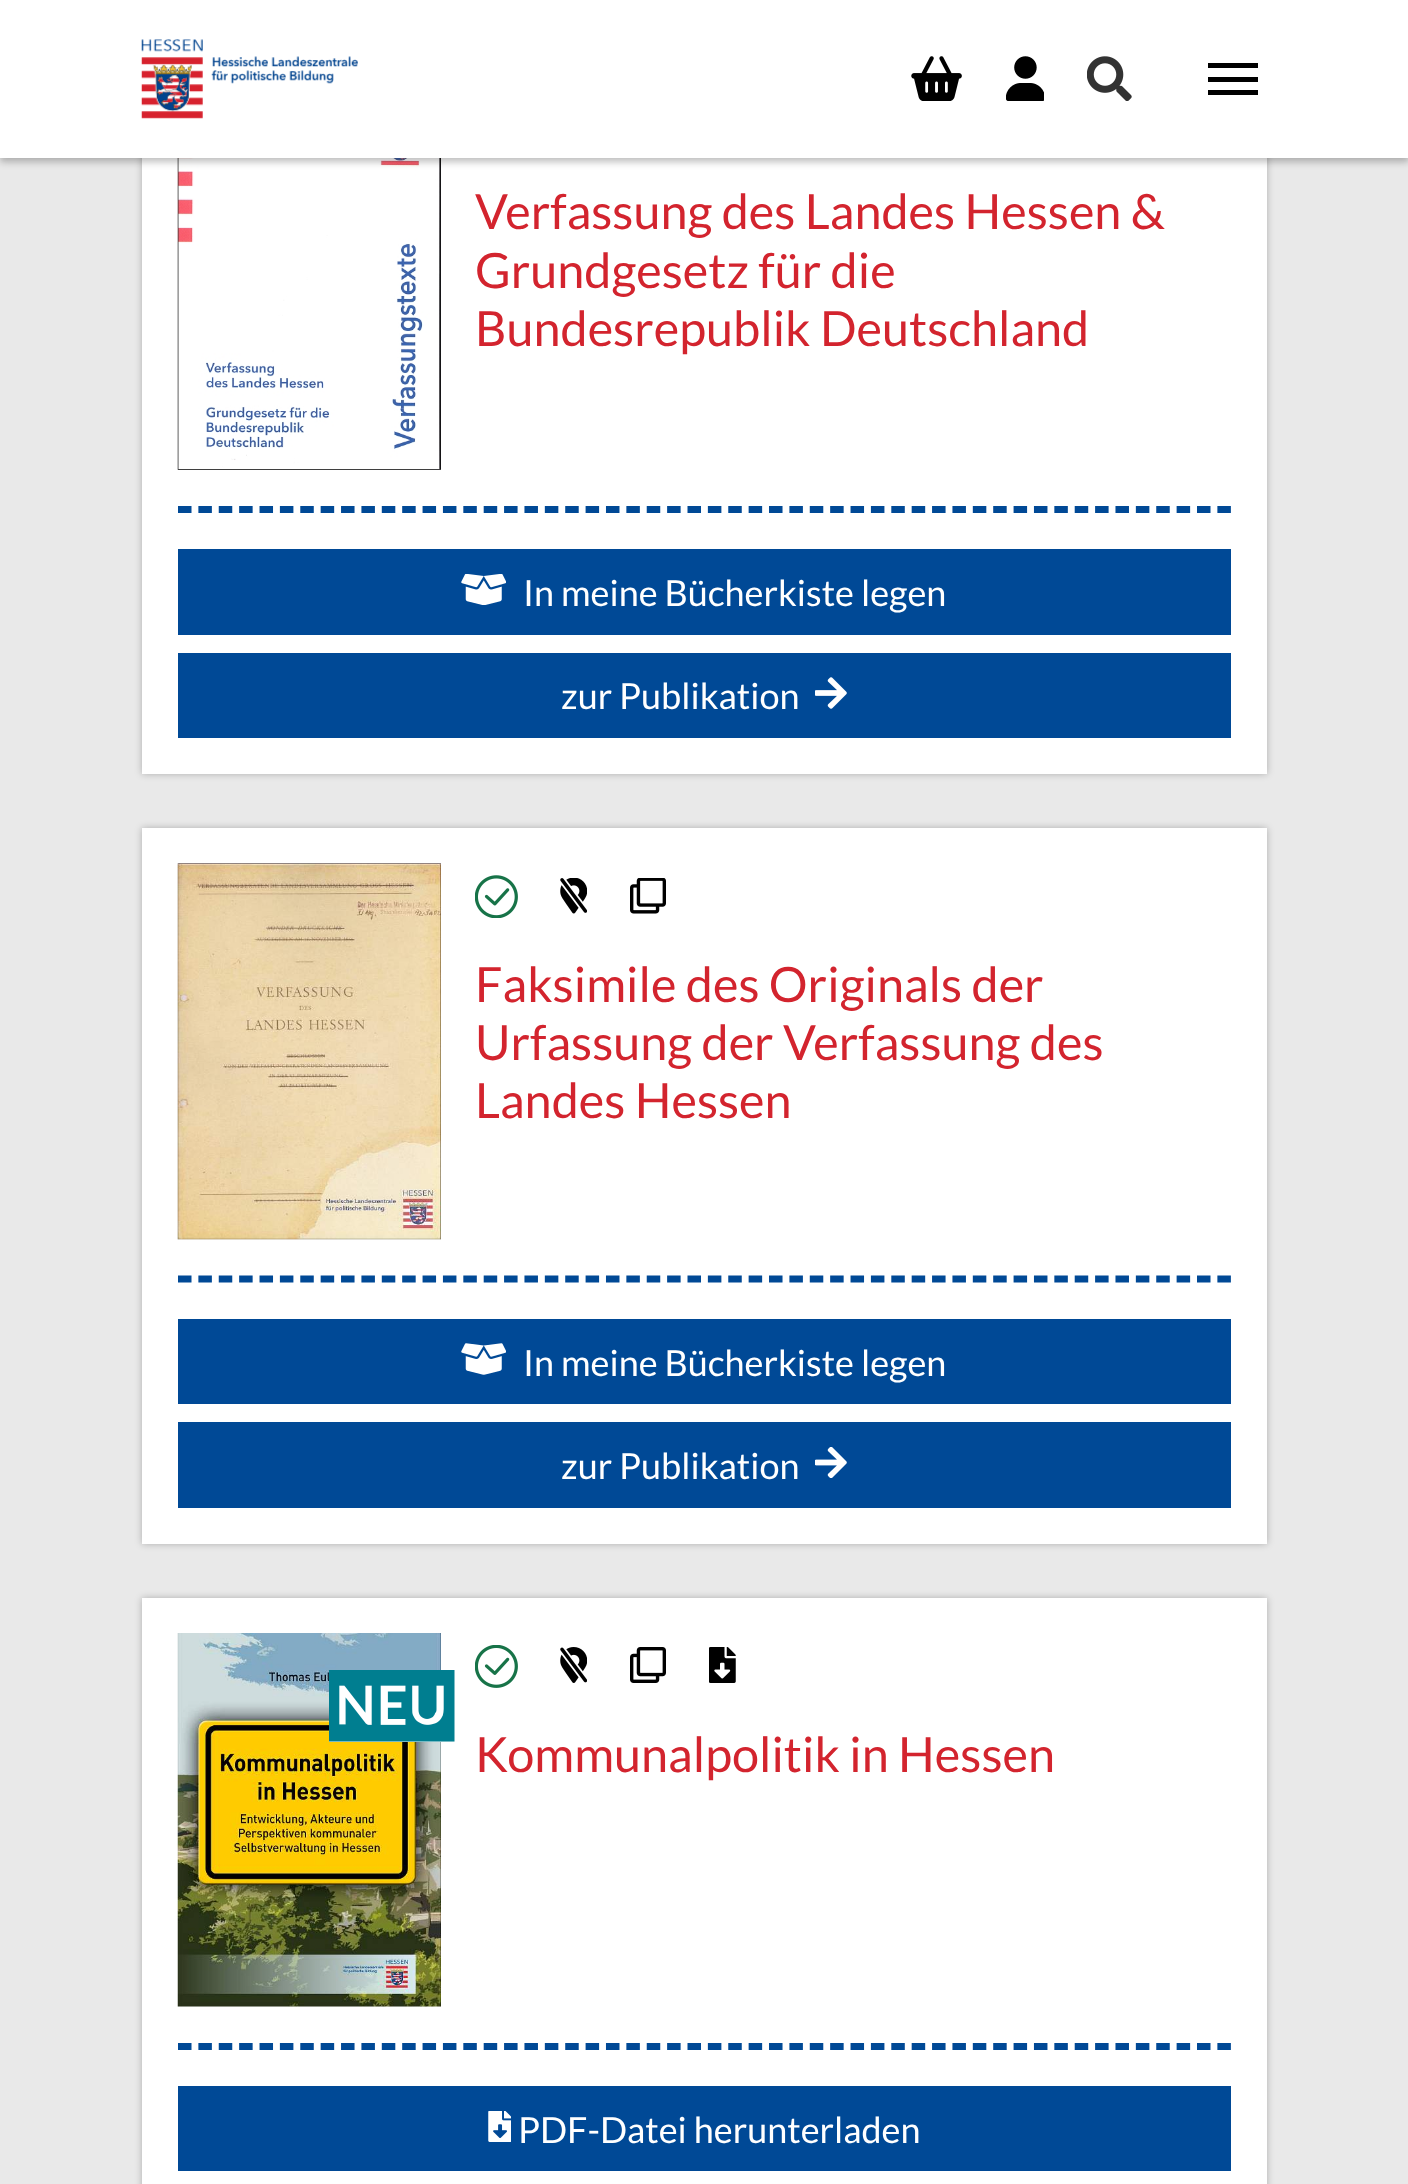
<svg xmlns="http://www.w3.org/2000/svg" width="1408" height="2184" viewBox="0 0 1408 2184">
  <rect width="100%" height="100%" fill="rgb(233,233,233)"/>
  <rect x="142" y="56" width="1125" height="718" fill="rgba(0,0,0,0.25)" filter="blur(3.5px)"/>
  <rect x="142" y="158" width="1125" height="616" fill="rgb(255,255,255)"/>
  <image x="177" y="158" width="264" height="312" href="pic5.png"/>
  <rect x="0" y="5" width="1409" height="157" fill="rgba(0,0,0,0.25)" filter="blur(3.5px)"/>
  <rect x="0" y="0" width="1408" height="158" fill="rgb(255,255,255)"/>
  <image x="141" y="39" width="217" height="80" href="pic1.png"/>
  <image x="911" y="56" width="51" height="45" href="pic2.png"/>
  <image x="1006" y="56" width="38" height="45" href="pic3.png"/>
  <image x="1087" y="56" width="45" height="45" href="pic4.png"/>
  <rect x="1208" y="77" width="50" height="5" fill="rgb(0,0,0)"/>
  <rect x="1208" y="63" width="50" height="5" fill="rgb(0,0,0)"/>
  <rect x="1208" y="90" width="50" height="5" fill="rgb(0,0,0)"/>
  <g font-family="Lato" font-size="48.6" fill="rgb(211,36,46)">
    <text>
      <tspan x="475" y="229">Verfassung des Landes Hessen &amp;</tspan>
      <tspan x="475" y="288">Grundgesetz für die</tspan>
      <tspan x="475" y="346">Bundesrepublik Deutschland</tspan>
    </text>
  </g>
  <path d="M178 509.5H1231" fill="none" stroke="rgb(0,73,150)" stroke-width="6.8" stroke-dasharray="13.5 6.88"/>
  <rect x="178" y="549" width="1053" height="86" fill="rgb(0,73,150)"/>
  <image x="461" y="574" width="45" height="31" href="pic6.png"/>
  <text x="523" y="606" font-family="Lato" font-size="36" fill="rgb(255,255,255)">In meine Bücherkiste legen</text>
  <rect x="178" y="653" width="1053" height="85" fill="rgb(0,73,150)"/>
  <text x="561" y="709" font-family="Lato" font-size="36" fill="rgb(255,255,255)">zur Publikation</text>
  <image x="815" y="677" width="32" height="32" href="pic7.png"/>
  <rect x="142" y="828" width="1125" height="716" fill="rgba(0,0,0,0.25)" filter="blur(3.5px)"/>
  <rect x="142" y="828" width="1125" height="716" fill="rgb(255,255,255)"/>
  <image x="177" y="863" width="264" height="377" href="pic8.png"/>
  <image x="475" y="875" width="43" height="43" href="pic9.png"/>
  <image x="560" y="878" width="27" height="36" href="pic10.png"/>
  <image x="630" y="878" width="36" height="36" href="pic11.png"/>
  <g font-family="Lato" font-size="48.6" fill="rgb(211,36,46)">
    <text>
      <tspan x="475" y="1002">Faksimile des Originals der</tspan>
      <tspan x="475" y="1060">Urfassung der Verfassung des</tspan>
      <tspan x="475" y="1118">Landes Hessen</tspan>
    </text>
  </g>
  <path d="M178 1279H1231" fill="none" stroke="rgb(0,73,150)" stroke-width="6.8" stroke-dasharray="13.5 6.88"/>
  <rect x="178" y="1319" width="1053" height="85" fill="rgb(0,73,150)"/>
  <image x="461" y="1343" width="45" height="32" href="pic12.png"/>
  <text x="523" y="1376" font-family="Lato" font-size="36" fill="rgb(255,255,255)">In meine Bücherkiste legen</text>
  <rect x="178" y="1422" width="1053" height="86" fill="rgb(0,73,150)"/>
  <text x="561" y="1479" font-family="Lato" font-size="36" fill="rgb(255,255,255)">zur Publikation</text>
  <image x="815" y="1447" width="32" height="31" href="pic13.png"/>
  <rect x="142" y="1598" width="1125" height="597" fill="rgba(0,0,0,0.25)" filter="blur(3.5px)"/>
  <rect x="142" y="1598" width="1125" height="586" fill="rgb(255,255,255)"/>
  <image x="177" y="1633" width="264" height="374" href="pic14.png"/>
  <rect x="329" y="1670" width="112" height="72" fill="rgb(255,255,255)"/>
  <image x="329" y="1670" width="126" height="72" href="pic15.png"/>
  <image x="475" y="1645" width="43" height="43" href="pic16.png"/>
  <image x="560" y="1647" width="27" height="36" href="pic17.png"/>
  <image x="630" y="1647" width="36" height="36" href="pic18.png"/>
  <image x="709" y="1647" width="27" height="36" href="pic19.png"/>
  <text x="475" y="1772" font-family="Lato" font-size="48.6" fill="rgb(211,36,46)">Kommunalpolitik in Hessen</text>
  <path d="M178 2046.5H1231" fill="none" stroke="rgb(0,73,150)" stroke-width="6.8" stroke-dasharray="13.5 6.88"/>
  <rect x="178" y="2086" width="1053" height="85" fill="rgb(0,73,150)"/>
  <image x="488" y="2111" width="23" height="31" href="pic20.png"/>
  <text x="518" y="2143" font-family="Lato" font-size="36" fill="rgb(255,255,255)">PDF-Datei herunterladen</text>
</svg>
